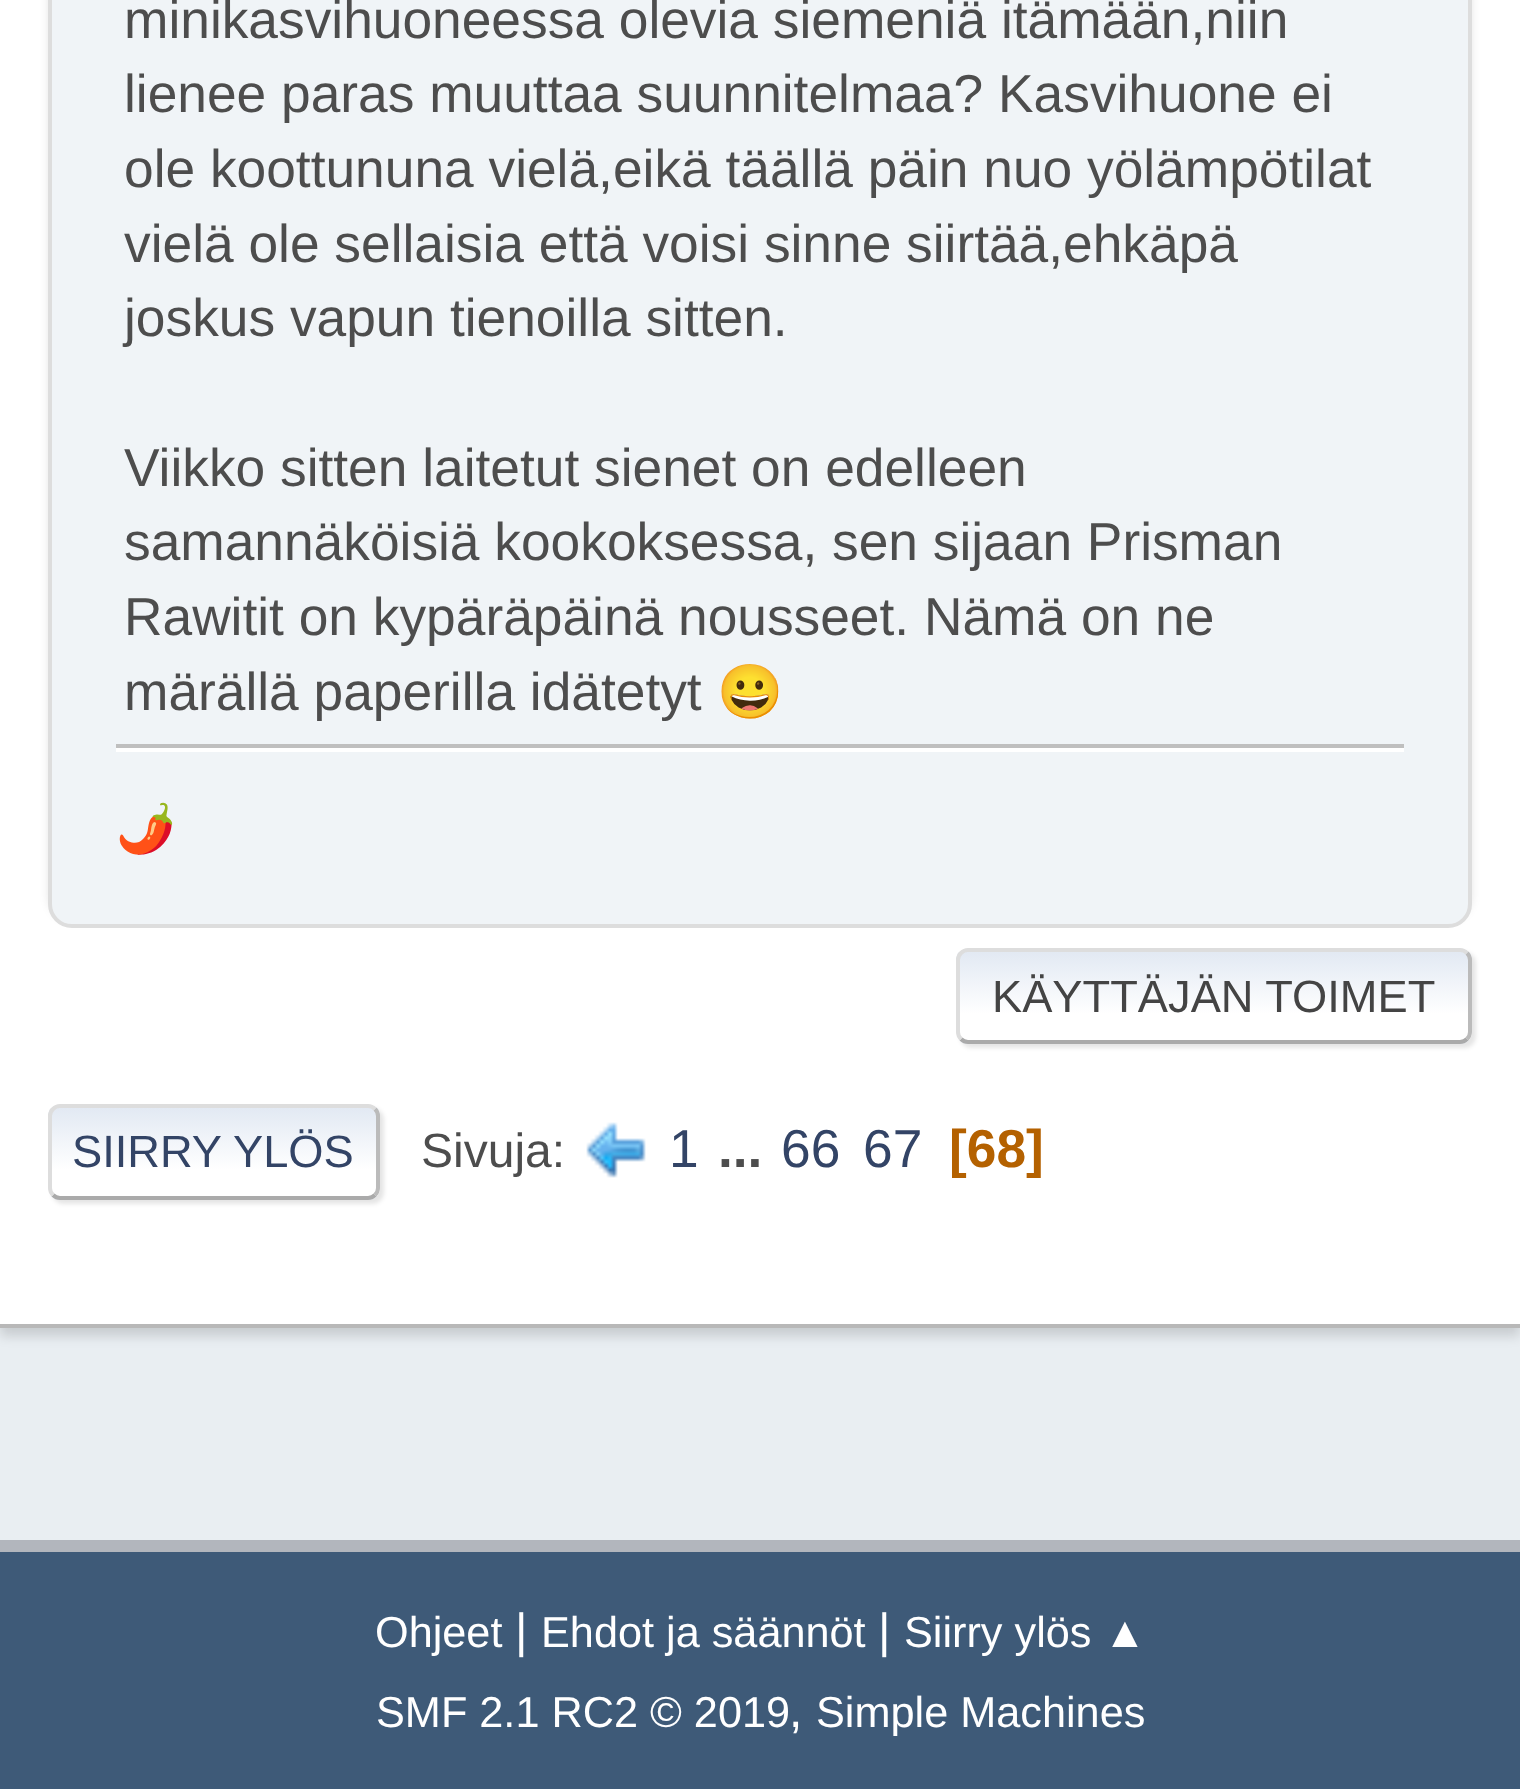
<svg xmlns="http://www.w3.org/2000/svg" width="1520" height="1789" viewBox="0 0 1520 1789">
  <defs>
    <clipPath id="clip1"><rect x="956" y="948" width="516" height="96" rx="12"/></clipPath>
    <linearGradient id="g1" gradientUnits="userSpaceOnUse" x1="1214" y1="952" x2="1214" y2="1040"><stop offset="0" stop-color="rgb(226,233,243)"/><stop offset="0.7" stop-color="rgb(255,255,255)"/></linearGradient>
    <linearGradient id="g2" gradientUnits="userSpaceOnUse" x1="1214" y1="1040" x2="1214" y2="1128"><stop offset="0" stop-color="rgb(226,233,243)"/><stop offset="0.7" stop-color="rgb(255,255,255)"/></linearGradient>
    <clipPath id="clip2"><rect x="48" y="1104" width="332" height="96" rx="12"/></clipPath>
    <linearGradient id="g3" gradientUnits="userSpaceOnUse" x1="214" y1="1108" x2="214" y2="1196"><stop offset="0" stop-color="rgb(226,233,243)"/><stop offset="0.7" stop-color="rgb(255,255,255)"/></linearGradient>
    <linearGradient id="g4" gradientUnits="userSpaceOnUse" x1="214" y1="1196" x2="214" y2="1284"><stop offset="0" stop-color="rgb(226,233,243)"/><stop offset="0.7" stop-color="rgb(255,255,255)"/></linearGradient>
  </defs>
  <rect width="100%" height="100%" fill="rgb(233,238,242)"/>
  <rect x="0" y="-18" width="1520" height="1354" fill="rgba(0,0,0,0.14)" filter="blur(6px)"/>
  <rect x="0" y="0" width="1520" height="1324" fill="rgb(255,255,255)"/>
  <rect x="0" y="1324" width="1520" height="4" fill="rgb(184,184,184)"/>
  <rect x="48" y="-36" width="1424" height="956" rx="24" fill="rgba(0,0,0,0.1)" filter="blur(4px)"/>
  <rect x="50" y="-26" width="1420" height="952" rx="22" fill="rgb(240,244,247)" stroke="rgb(221,221,221)" stroke-width="4"/>
  <g font-family="Liberation Sans" font-size="53.3" fill="rgb(77,77,77)">
    <text>
      <tspan x="124" y="38">minikasvihuoneessa olevia siemeniä itämään,niin</tspan>
      <tspan x="124" y="112">lienee paras muuttaa suunnitelmaa? Kasvihuone ei</tspan>
      <tspan x="124" y="187">ole koottununa vielä,eikä täällä päin nuo yölämpötilat</tspan>
      <tspan x="124" y="262">vielä ole sellaisia että voisi sinne siirtää,ehkäpä</tspan>
      <tspan x="124" y="336">joskus vapun tienoilla sitten.</tspan>
    </text>
    <text>
      <tspan x="124" y="486">Viikko sitten laitetut sienet on edelleen</tspan>
      <tspan x="124" y="560">samannäköisiä kookoksessa, sen sijaan Prisman</tspan>
      <tspan x="124" y="635">Rawitit on kypäräpäinä nousseet. Nämä on ne</tspan>
      <tspan x="124" y="710">märällä paperilla idätetyt</tspan>
    </text>
  </g>
  <text x="717" y="710" font-family="Noto Color Emoji" font-size="53.3" fill="rgb(77,77,77)">😀</text>
  <rect x="116" y="748" width="1288" height="4" fill="rgb(255,255,255)"/>
  <rect x="116" y="744" width="1288" height="4" fill="rgb(191,191,191)"/>
  <text x="116" y="845" font-family="Noto Color Emoji" font-size="48" fill="rgb(77,77,77)">🌶️</text>
  <rect x="960" y="952" width="516" height="96" rx="12" fill="rgba(0,0,0,0.1)" filter="blur(2px)"/>
  <rect x="956" y="948" width="516" height="96" rx="12" fill="rgb(255,255,255)"/>
  <g clip-path="url(#clip1)">
    <rect x="956" y="952" width="516" height="88" fill="url(#g1)"/>
    <rect x="956" y="1040" width="516" height="4" fill="url(#g2)"/>
  </g>
  <path d="M1467 953C1469 955 1470 957.5 1470 960V1032C1470 1034.5 1469 1037 1467 1039" fill="none" stroke="rgb(187,187,187)" stroke-width="4"/>
  <path d="M1467 1039C1465 1041 1462.5 1042 1460 1042H968C965.5 1042 963 1041 961 1039" fill="none" stroke="rgb(170,170,170)" stroke-width="4"/>
  <path d="M961 1039C959 1037 958 1034.5 958 1032V960C958 957.5 959 955 961 953C963 951 965.5 950 968 950H1460C1462.5 950 1465 951 1467 953" fill="none" stroke="rgb(221,221,221)" stroke-width="4"/>
  <text x="992" y="1012" font-family="Liberation Sans" font-size="45.25" fill="rgb(68,68,68)">KÄYTTÄJÄN TOIMET</text>
  <rect x="52" y="1108" width="332" height="96" rx="12" fill="rgba(0,0,0,0.1)" filter="blur(2px)"/>
  <rect x="48" y="1104" width="332" height="96" rx="12" fill="rgb(255,255,255)"/>
  <g clip-path="url(#clip2)">
    <rect x="48" y="1108" width="332" height="88" fill="url(#g3)"/>
    <rect x="48" y="1196" width="332" height="4" fill="url(#g4)"/>
  </g>
  <path d="M375 1109C377 1111 378 1113.5 378 1116V1188C378 1190.5 377 1193 375 1195" fill="none" stroke="rgb(187,187,187)" stroke-width="4"/>
  <path d="M375 1195C373 1197 370.5 1198 368 1198H60C57.5 1198 55 1197 53 1195" fill="none" stroke="rgb(170,170,170)" stroke-width="4"/>
  <path d="M53 1195C51 1193 50 1190.5 50 1188V1116C50 1113.5 51 1111 53 1109C55 1107 57.5 1106 60 1106H368C370.5 1106 373 1107 375 1109" fill="none" stroke="rgb(221,221,221)" stroke-width="4"/>
  <text x="72" y="1167" font-family="Liberation Sans" font-size="45.25" fill="rgb(51,68,102)">SIIRRY YLÖS</text>
  <text x="421" y="1167" font-family="Liberation Sans" font-size="48" fill="rgb(77,77,77)">Sivuja:</text>
  <image x="586" y="1122" width="60" height="56" href="pic1.png"/>
  <text x="669" y="1167" font-family="Liberation Sans" font-size="53.3" fill="rgb(51,68,102)">1</text>
  <text x="718" y="1167" font-family="Liberation Sans" font-size="53.3" font-weight="bold" fill="rgb(77,77,77)">...</text>
  <g font-family="Liberation Sans" font-size="53.3" fill="rgb(51,68,102)">
    <text x="781" y="1167">66</text>
    <text x="863" y="1167">67</text>
  </g>
  <text x="949" y="1167" font-family="Liberation Sans" font-size="53.3" font-weight="bold" fill="rgb(180,97,0)">[68]</text>
  <rect x="0" y="1552" width="1520" height="237" fill="rgb(62,90,120)"/>
  <rect x="0" y="1540" width="1520" height="12" fill="rgb(178,182,189)"/>
  <text x="375" y="1647" font-family="Liberation Sans" font-size="43.25" fill="rgb(255,255,255)">Ohjeet</text>
  <text x="515" y="1647" font-family="Liberation Sans" font-size="48" fill="rgb(255,255,255)">|</text>
  <text x="541" y="1647" font-family="Liberation Sans" font-size="43.25" fill="rgb(255,255,255)">Ehdot ja säännöt</text>
  <text x="878" y="1647" font-family="Liberation Sans" font-size="48" fill="rgb(255,255,255)">|</text>
  <g font-family="Liberation Sans" font-size="43.25" fill="rgb(255,255,255)">
    <text x="904" y="1647">Siirry ylös ▲</text>
    <text x="376" y="1727">SMF 2.1 RC2 © 2019</text>
  </g>
  <text x="789" y="1727" font-family="Liberation Sans" font-size="48" fill="rgb(255,255,255)">,</text>
  <text x="816" y="1727" font-family="Liberation Sans" font-size="43.25" fill="rgb(255,255,255)">Simple Machines</text>
</svg>
